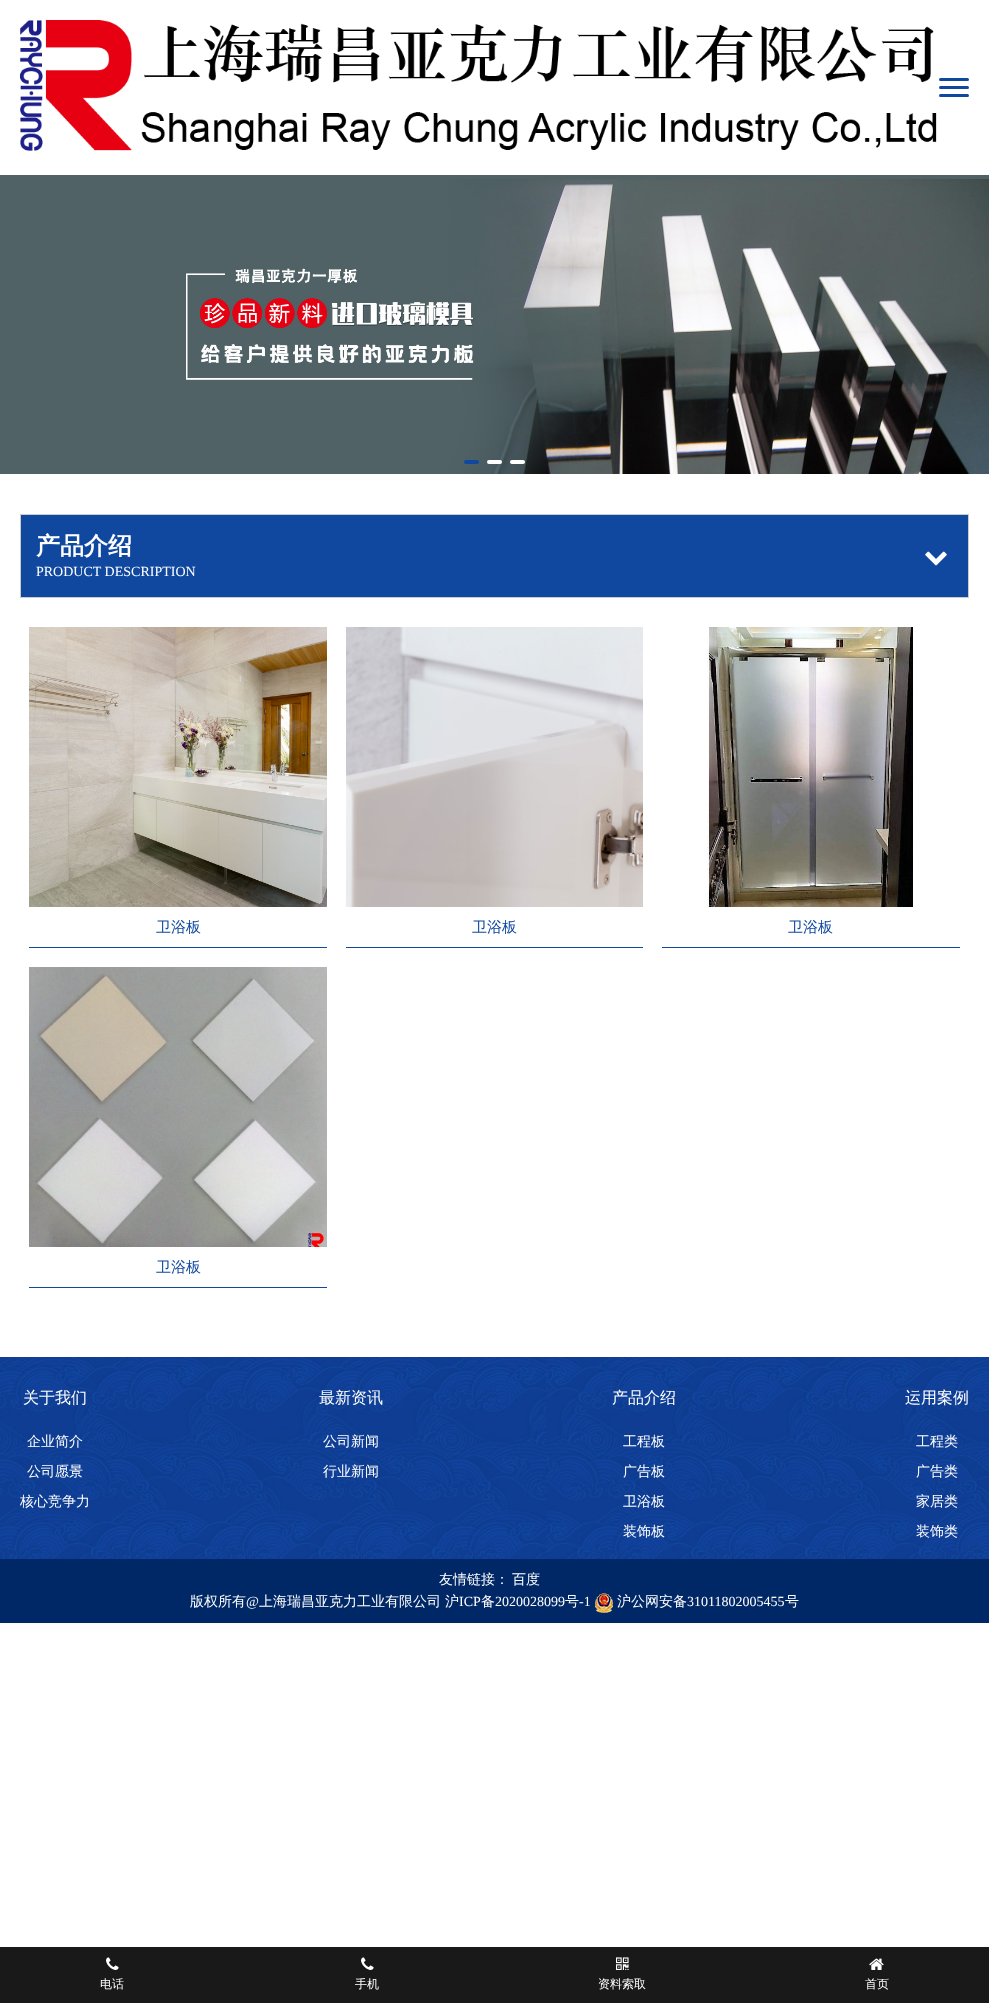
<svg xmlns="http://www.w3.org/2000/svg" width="989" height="2003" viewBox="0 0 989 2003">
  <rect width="100%" height="100%" fill="rgb(255,255,255)"/>
  <image x="20" y="20" width="917" height="131" href="pic1.png"/>
  <rect x="939" y="78" width="30" height="3" rx="1.5" fill="rgb(16,72,160)"/>
  <rect x="939" y="86" width="30" height="3" rx="1.5" fill="rgb(16,72,160)"/>
  <rect x="939" y="94" width="30" height="3" rx="1.5" fill="rgb(16,72,160)"/>
  <image x="0" y="175" width="989" height="299" href="pic2.png"/>
  <rect x="464" y="460" width="15" height="4" rx="2" fill="rgb(16,72,160)"/>
  <rect x="487" y="460" width="15" height="4" rx="2" fill="rgb(255,255,255)"/>
  <rect x="510" y="460" width="15" height="4" rx="2" fill="rgb(255,255,255)"/>
  <rect x="20.5" y="514.5" width="948" height="83" fill="none" stroke="rgb(204,204,204)"/>
  <rect x="21" y="515" width="947" height="82" fill="rgb(16,72,160)"/>
  <text x="36" y="554" font-family="WenQuanYi Zen Hei" font-size="24" font-weight="bold" fill="rgb(255,255,255)">产品介绍</text>
  <image x="925" y="551" width="22" height="15" href="pic3.png"/>
  <text x="36" y="576" font-family="Liberation Serif" font-size="14" fill="rgb(255,255,255)">PRODUCT DESCRIPTION</text>
  <image x="29" y="627" width="298" height="280" href="pic4.png"/>
  <rect x="29" y="947" width="298" height="1" fill="rgb(16,72,160)"/>
  <text x="156" y="932" font-family="WenQuanYi Zen Hei" font-size="15" font-weight="500" fill="rgb(16,72,160)">卫浴板</text>
  <image x="346" y="627" width="297" height="280" href="pic5.png"/>
  <rect x="346" y="947" width="297" height="1" fill="rgb(16,72,160)"/>
  <text x="472" y="932" font-family="WenQuanYi Zen Hei" font-size="15" font-weight="500" fill="rgb(16,72,160)">卫浴板</text>
  <image x="707" y="627" width="207" height="280" href="pic6.png"/>
  <rect x="662" y="947" width="298" height="1" fill="rgb(16,72,160)"/>
  <text x="788" y="932" font-family="WenQuanYi Zen Hei" font-size="15" font-weight="500" fill="rgb(16,72,160)">卫浴板</text>
  <image x="29" y="967" width="298" height="280" href="pic7.png"/>
  <rect x="29" y="1287" width="298" height="1" fill="rgb(16,72,160)"/>
  <text x="156" y="1272" font-family="WenQuanYi Zen Hei" font-size="15" font-weight="500" fill="rgb(16,72,160)">卫浴板</text>
  <image x="0" y="1357" width="989" height="202" href="pic8.png"/>
  <text x="23" y="1403" font-family="WenQuanYi Zen Hei" font-size="16" font-weight="500" fill="rgb(255,255,255)">关于我们</text>
  <g font-family="WenQuanYi Zen Hei" font-size="14" font-weight="500" fill="rgb(255,255,255)">
    <text x="27" y="1446">企业简介</text>
    <text x="27" y="1476">公司愿景</text>
    <text x="20" y="1506">核心竞争力</text>
  </g>
  <text x="319" y="1403" font-family="WenQuanYi Zen Hei" font-size="16" font-weight="500" fill="rgb(255,255,255)">最新资讯</text>
  <g font-family="WenQuanYi Zen Hei" font-size="14" font-weight="500" fill="rgb(255,255,255)">
    <text x="323" y="1446">公司新闻</text>
    <text x="323" y="1476">行业新闻</text>
  </g>
  <text x="612" y="1403" font-family="WenQuanYi Zen Hei" font-size="16" font-weight="500" fill="rgb(255,255,255)">产品介绍</text>
  <g font-family="WenQuanYi Zen Hei" font-size="14" font-weight="500" fill="rgb(255,255,255)">
    <text x="623" y="1446">工程板</text>
    <text x="623" y="1476">广告板</text>
    <text x="623" y="1506">卫浴板</text>
    <text x="623" y="1536">装饰板</text>
  </g>
  <text x="905" y="1403" font-family="WenQuanYi Zen Hei" font-size="16" font-weight="500" fill="rgb(255,255,255)">运用案例</text>
  <g font-family="WenQuanYi Zen Hei" font-size="14" font-weight="500" fill="rgb(255,255,255)">
    <text x="916" y="1446">工程类</text>
    <text x="916" y="1476">广告类</text>
    <text x="916" y="1506">家居类</text>
    <text x="916" y="1536">装饰类</text>
  </g>
  <rect x="0" y="1559" width="989" height="64" fill="rgb(0,40,103)"/>
  <g font-family="WenQuanYi Zen Hei" font-size="14" font-weight="500" fill="rgb(255,255,255)">
    <text x="439" y="1584">友情链接：</text>
    <text x="512" y="1584">百度</text>
    <text x="190" y="1606">版权所有</text>
  </g>
  <text x="246" y="1606" font-family="Liberation Serif" font-size="14" fill="rgb(255,255,255)">@</text>
  <g font-family="WenQuanYi Zen Hei" font-size="14" font-weight="500" fill="rgb(255,255,255)">
    <text x="259" y="1606">上海瑞昌亚克力工业有限公司</text>
    <text x="445" y="1606">沪</text>
  </g>
  <text x="459" y="1606" font-family="Liberation Serif" font-size="14" fill="rgb(255,255,255)">ICP</text>
  <text x="481" y="1606" font-family="WenQuanYi Zen Hei" font-size="14" font-weight="500" fill="rgb(255,255,255)">备</text>
  <text x="495" y="1606" font-family="Liberation Serif" font-size="14" fill="rgb(255,255,255)">2020028099</text>
  <text x="565" y="1606" font-family="WenQuanYi Zen Hei" font-size="14" font-weight="500" fill="rgb(255,255,255)">号</text>
  <text x="579" y="1606" font-family="Liberation Serif" font-size="14" fill="rgb(255,255,255)">-1</text>
  <image x="595" y="1593" width="18" height="20" href="pic9.png"/>
  <text x="617" y="1606" font-family="WenQuanYi Zen Hei" font-size="14" font-weight="500" fill="rgb(255,255,255)">沪公网安备</text>
  <text x="687" y="1606" font-family="Liberation Serif" font-size="14" fill="rgb(255,255,255)">31011802005455</text>
  <text x="785" y="1606" font-family="WenQuanYi Zen Hei" font-size="14" font-weight="500" fill="rgb(255,255,255)">号</text>
  <rect x="0" y="1947" width="989" height="56" fill="rgb(25,25,25)"/>
  <image x="106" y="1957" width="13" height="13" href="pic10.png"/>
  <text x="100" y="1988" font-family="WenQuanYi Zen Hei" font-size="12" font-weight="500" fill="rgb(255,255,255)">电话</text>
  <image x="361" y="1957" width="13" height="13" href="pic10.png"/>
  <text x="355" y="1988" font-family="WenQuanYi Zen Hei" font-size="12" font-weight="500" fill="rgb(255,255,255)">手机</text>
  <image x="616" y="1957" width="13" height="13" href="pic11.png"/>
  <text x="598" y="1988" font-family="WenQuanYi Zen Hei" font-size="12" font-weight="500" fill="rgb(255,255,255)">资料索取</text>
  <image x="869" y="1958" width="15" height="12" href="pic12.png"/>
  <text x="865" y="1988" font-family="WenQuanYi Zen Hei" font-size="12" font-weight="500" fill="rgb(255,255,255)">首页</text>
</svg>
